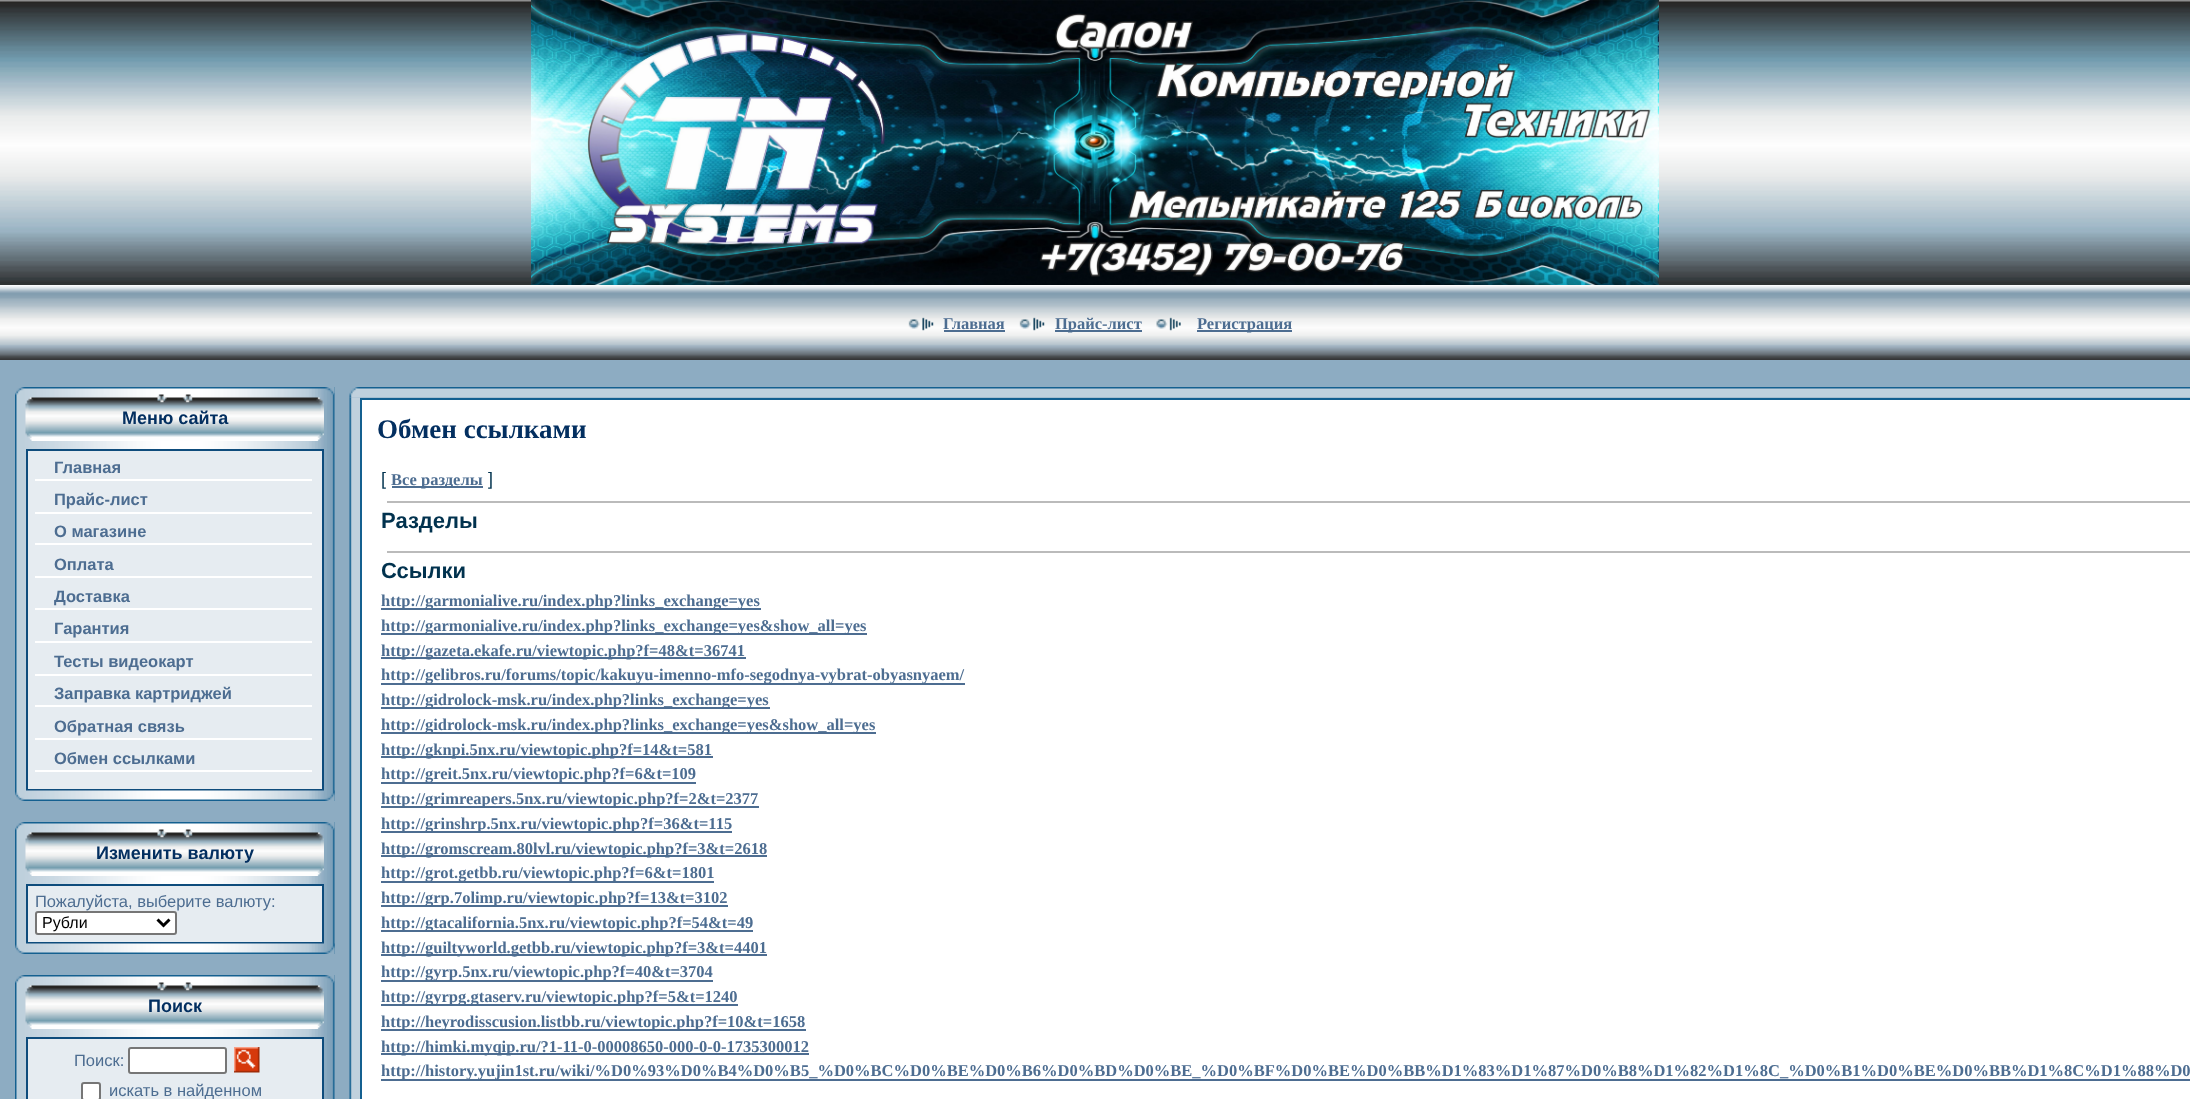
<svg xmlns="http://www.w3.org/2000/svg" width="2190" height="1099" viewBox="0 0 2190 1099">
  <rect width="100%" height="100%" fill="rgb(141,172,194)"/>
  <image x="0" y="0" width="2190" height="285" href="pic1.png"/>
  <image x="531" y="0" width="1128" height="285" href="pic2.png"/>
  <image x="0" y="285" width="2190" height="75" href="pic3.png"/>
  <image x="908" y="317" width="26" height="14" href="pic4.png"/>
  <text x="943" y="329" font-family="Liberation Serif" font-size="16.5" font-weight="bold" fill="rgb(77,109,145)">Главная</text>
  <rect x="944" y="330" width="61" height="2" fill="rgb(77,109,145)"/>
  <image x="1019" y="317" width="26" height="14" href="pic4.png"/>
  <rect x="1055" y="330" width="87" height="2" fill="rgb(77,109,145)"/>
  <text x="1055" y="329" font-family="Liberation Serif" font-size="16.5" font-weight="bold" fill="rgb(77,109,145)">Прайс-лист</text>
  <image x="1156" y="317" width="25" height="14" href="pic5.png"/>
  <rect x="1197" y="330" width="95" height="2" fill="rgb(77,109,145)"/>
  <text x="1197" y="329" font-family="Liberation Serif" font-size="16.5" font-weight="bold" fill="rgb(77,109,145)">Регистрация</text>
  <image x="15" y="387" width="320" height="414" href="pic6.png"/>
  <image x="15" y="387" width="320" height="8" href="pic7.png"/>
  <image x="25" y="394" width="299" height="47" href="pic8.png"/>
  <text x="122" y="424" font-family="Liberation Sans" font-size="18" font-weight="bold" fill="rgb(3,47,96)">Меню сайта</text>
  <rect x="27" y="450" width="296" height="340" fill="rgb(230,236,241)" stroke="rgb(14,76,124)" stroke-width="2"/>
  <rect x="35" y="479" width="277" height="2" fill="rgb(255,255,255)"/>
  <text x="54" y="473" font-family="Liberation Sans" font-size="16.5" font-weight="bold" fill="rgb(77,109,145)">Главная</text>
  <rect x="35" y="512" width="277" height="2" fill="rgb(255,255,255)"/>
  <text x="54" y="505" font-family="Liberation Sans" font-size="16.5" font-weight="bold" fill="rgb(77,109,145)">Прайс-лист</text>
  <rect x="35" y="543" width="277" height="2" fill="rgb(255,255,255)"/>
  <text x="54" y="537" font-family="Liberation Sans" font-size="16.5" font-weight="bold" fill="rgb(77,109,145)">О магазине</text>
  <rect x="35" y="576" width="277" height="2" fill="rgb(255,255,255)"/>
  <text x="54" y="570" font-family="Liberation Sans" font-size="16.5" font-weight="bold" fill="rgb(77,109,145)">Оплата</text>
  <rect x="35" y="608" width="277" height="2" fill="rgb(255,255,255)"/>
  <text x="54" y="602" font-family="Liberation Sans" font-size="16.5" font-weight="bold" fill="rgb(77,109,145)">Доставка</text>
  <rect x="35" y="641" width="277" height="2" fill="rgb(255,255,255)"/>
  <text x="54" y="634" font-family="Liberation Sans" font-size="16.5" font-weight="bold" fill="rgb(77,109,145)">Гарантия</text>
  <rect x="35" y="674" width="277" height="2" fill="rgb(255,255,255)"/>
  <text x="54" y="667" font-family="Liberation Sans" font-size="16.5" font-weight="bold" fill="rgb(77,109,145)">Тесты видеокарт</text>
  <rect x="35" y="705" width="277" height="2" fill="rgb(255,255,255)"/>
  <text x="54" y="699" font-family="Liberation Sans" font-size="16.5" font-weight="bold" fill="rgb(77,109,145)">Заправка картриджей</text>
  <rect x="35" y="738" width="277" height="2" fill="rgb(255,255,255)"/>
  <text x="54" y="732" font-family="Liberation Sans" font-size="16.5" font-weight="bold" fill="rgb(77,109,145)">Обратная связь</text>
  <rect x="35" y="770" width="277" height="2" fill="rgb(255,255,255)"/>
  <text x="54" y="764" font-family="Liberation Sans" font-size="16.5" font-weight="bold" fill="rgb(77,109,145)">Обмен ссылками</text>
  <image x="15" y="790" width="320" height="11" href="pic9.png"/>
  <image x="15" y="822" width="320" height="132" href="pic10.png"/>
  <image x="15" y="822" width="320" height="8" href="pic7.png"/>
  <image x="25" y="829" width="299" height="47" href="pic8.png"/>
  <text x="96" y="859" font-family="Liberation Sans" font-size="18" font-weight="bold" fill="rgb(3,47,96)">Изменить валюту</text>
  <rect x="27" y="885" width="296" height="58" fill="rgb(230,236,241)" stroke="rgb(14,76,124)" stroke-width="2"/>
  <text x="35" y="907" font-family="Liberation Sans" font-size="16.5" fill="rgb(77,109,145)">Пожалуйста, выберите валюту:</text>
  <rect x="36" y="912" width="140" height="22" rx="2" fill="rgb(255,255,255)" stroke="rgb(118,118,118)" stroke-width="2"/>
  <path d="M157.5 919.5L163.5 925.5L169.5 919.5" fill="none" stroke="rgb(0,0,0)" stroke-width="3"/>
  <text x="42" y="928" font-family="Liberation Sans" font-size="16" fill="rgb(0,0,0)">Рубли</text>
  <image x="15" y="943" width="320" height="11" href="pic9.png"/>
  <image x="15" y="975" width="320" height="124" href="pic11.png"/>
  <image x="15" y="975" width="320" height="8" href="pic7.png"/>
  <image x="25" y="982" width="299" height="47" href="pic8.png"/>
  <text x="148" y="1012" font-family="Liberation Sans" font-size="18" font-weight="bold" fill="rgb(3,47,96)">Поиск</text>
  <rect x="27" y="1038" width="296" height="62" fill="rgb(230,236,241)" stroke="rgb(14,76,124)" stroke-width="2"/>
  <text x="74" y="1066" font-family="Liberation Sans" font-size="16.5" fill="rgb(77,109,145)">Поиск:</text>
  <rect x="129" y="1048" width="97" height="25" rx="2" fill="rgb(255,255,255)" stroke="rgb(118,118,118)" stroke-width="2"/>
  <image x="234" y="1047" width="26" height="26" href="pic12.png"/>
  <rect x="82" y="1083" width="18" height="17" rx="2" fill="rgb(255,255,255)" stroke="rgb(118,118,118)" stroke-width="2"/>
  <text x="109" y="1096" font-family="Liberation Sans" font-size="16.5" fill="rgb(77,109,145)">искать в найденном</text>
  <image x="349" y="397" width="11" height="702" href="pic15.png"/>
  <image x="349" y="387" width="11" height="11" href="pic13.png"/>
  <image x="360" y="387" width="1830" height="11" href="pic14.png"/>
  <rect x="361" y="399" width="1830" height="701" fill="rgb(255,255,255)" stroke="rgb(20,96,144)" stroke-width="2"/>
  <text x="377" y="438" font-family="Liberation Serif" font-size="27" font-weight="bold" fill="rgb(3,47,96)">Обмен ссылками</text>
  <text x="381" y="485" font-family="Liberation Sans" font-size="18" fill="rgb(1,50,78)">[</text>
  <rect x="392" y="486" width="91" height="2" fill="rgb(77,109,145)"/>
  <text x="391" y="485" font-family="Liberation Serif" font-size="16.5" font-weight="bold" fill="rgb(77,109,145)">Все разделы</text>
  <text x="488" y="485" font-family="Liberation Sans" font-size="18" fill="rgb(1,50,78)">]</text>
  <rect x="387" y="501" width="1803" height="2" fill="rgb(187,187,187)"/>
  <text x="381" y="528" font-family="Liberation Sans" font-size="22" font-weight="bold" fill="rgb(1,50,78)">Разделы</text>
  <rect x="387" y="551" width="1803" height="2" fill="rgb(187,187,187)"/>
  <text x="381" y="578" font-family="Liberation Sans" font-size="22" font-weight="bold" fill="rgb(1,50,78)">Ссылки</text>
  <rect x="381" y="608" width="380" height="2" fill="rgb(77,109,145)"/>
  <text x="381" y="606" font-family="Liberation Serif" font-size="16.5" font-weight="bold" fill="rgb(77,109,145)">http://garmonialive.ru/index.php?links_exchange=yes</text>
  <rect x="381" y="633" width="486" height="2" fill="rgb(77,109,145)"/>
  <text x="381" y="631" font-family="Liberation Serif" font-size="16.5" font-weight="bold" fill="rgb(77,109,145)">http://garmonialive.ru/index.php?links_exchange=yes&amp;show_all=yes</text>
  <rect x="381" y="657" width="365" height="2" fill="rgb(77,109,145)"/>
  <text x="381" y="656" font-family="Liberation Serif" font-size="16.5" font-weight="bold" fill="rgb(77,109,145)">http://gazeta.ekafe.ru/viewtopic.php?f=48&amp;t=36741</text>
  <rect x="381" y="683" width="584" height="2" fill="rgb(77,109,145)"/>
  <text x="381" y="680" font-family="Liberation Serif" font-size="16.5" font-weight="bold" fill="rgb(77,109,145)">http://gelibros.ru/forums/topic/kakuyu-imenno-mfo-segodnya-vybrat-obyasnyaem/</text>
  <rect x="381" y="707" width="389" height="2" fill="rgb(77,109,145)"/>
  <text x="381" y="705" font-family="Liberation Serif" font-size="16.5" font-weight="bold" fill="rgb(77,109,145)">http://gidrolock-msk.ru/index.php?links_exchange=yes</text>
  <rect x="381" y="732" width="495" height="2" fill="rgb(77,109,145)"/>
  <text x="381" y="730" font-family="Liberation Serif" font-size="16.5" font-weight="bold" fill="rgb(77,109,145)">http://gidrolock-msk.ru/index.php?links_exchange=yes&amp;show_all=yes</text>
  <rect x="381" y="756" width="332" height="2" fill="rgb(77,109,145)"/>
  <text x="381" y="755" font-family="Liberation Serif" font-size="16.5" font-weight="bold" fill="rgb(77,109,145)">http://gknpi.5nx.ru/viewtopic.php?f=14&amp;t=581</text>
  <rect x="381" y="782" width="315" height="2" fill="rgb(77,109,145)"/>
  <text x="381" y="779" font-family="Liberation Serif" font-size="16.5" font-weight="bold" fill="rgb(77,109,145)">http://greit.5nx.ru/viewtopic.php?f=6&amp;t=109</text>
  <rect x="381" y="806" width="378" height="2" fill="rgb(77,109,145)"/>
  <text x="381" y="804" font-family="Liberation Serif" font-size="16.5" font-weight="bold" fill="rgb(77,109,145)">http://grimreapers.5nx.ru/viewtopic.php?f=2&amp;t=2377</text>
  <rect x="381" y="831" width="351" height="2" fill="rgb(77,109,145)"/>
  <text x="381" y="829" font-family="Liberation Serif" font-size="16.5" font-weight="bold" fill="rgb(77,109,145)">http://grinshrp.5nx.ru/viewtopic.php?f=36&amp;t=115</text>
  <rect x="381" y="855" width="386" height="2" fill="rgb(77,109,145)"/>
  <text x="381" y="854" font-family="Liberation Serif" font-size="16.5" font-weight="bold" fill="rgb(77,109,145)">http://gromscream.80lvl.ru/viewtopic.php?f=3&amp;t=2618</text>
  <rect x="381" y="881" width="333" height="2" fill="rgb(77,109,145)"/>
  <text x="381" y="878" font-family="Liberation Serif" font-size="16.5" font-weight="bold" fill="rgb(77,109,145)">http://grot.getbb.ru/viewtopic.php?f=6&amp;t=1801</text>
  <rect x="381" y="905" width="347" height="2" fill="rgb(77,109,145)"/>
  <text x="381" y="903" font-family="Liberation Serif" font-size="16.5" font-weight="bold" fill="rgb(77,109,145)">http://grp.7olimp.ru/viewtopic.php?f=13&amp;t=3102</text>
  <rect x="381" y="930" width="372" height="2" fill="rgb(77,109,145)"/>
  <text x="381" y="928" font-family="Liberation Serif" font-size="16.5" font-weight="bold" fill="rgb(77,109,145)">http://gtacalifornia.5nx.ru/viewtopic.php?f=54&amp;t=49</text>
  <rect x="381" y="954" width="386" height="2" fill="rgb(77,109,145)"/>
  <text x="381" y="953" font-family="Liberation Serif" font-size="16.5" font-weight="bold" fill="rgb(77,109,145)">http://guiltyworld.getbb.ru/viewtopic.php?f=3&amp;t=4401</text>
  <rect x="381" y="980" width="332" height="2" fill="rgb(77,109,145)"/>
  <text x="381" y="977" font-family="Liberation Serif" font-size="16.5" font-weight="bold" fill="rgb(77,109,145)">http://gyrp.5nx.ru/viewtopic.php?f=40&amp;t=3704</text>
  <rect x="381" y="1004" width="357" height="2" fill="rgb(77,109,145)"/>
  <text x="381" y="1002" font-family="Liberation Serif" font-size="16.5" font-weight="bold" fill="rgb(77,109,145)">http://gyrpg.gtaserv.ru/viewtopic.php?f=5&amp;t=1240</text>
  <rect x="381" y="1029" width="425" height="2" fill="rgb(77,109,145)"/>
  <text x="381" y="1027" font-family="Liberation Serif" font-size="16.5" font-weight="bold" fill="rgb(77,109,145)">http://heyrodisscusion.listbb.ru/viewtopic.php?f=10&amp;t=1658</text>
  <rect x="381" y="1053" width="428" height="2" fill="rgb(77,109,145)"/>
  <text x="381" y="1052" font-family="Liberation Serif" font-size="16.5" font-weight="bold" fill="rgb(77,109,145)">http://himki.myqip.ru/?1-11-0-00008650-000-0-0-1735300012</text>
  <rect x="381" y="1079" width="1809" height="2" fill="rgb(77,109,145)"/>
  <text x="381" y="1076" font-family="Liberation Serif" font-size="16.5" font-weight="bold" fill="rgb(77,109,145)">http://history.yujin1st.ru/wiki/%D0%93%D0%B4%D0%B5_%D0%BC%D0%BE%D0%B6%D0%BD%D0%BE_%D0%BF%D0%BE%D0%BB%D1%83%D1%87%D0%B8%D1%82%D1%8C_%D0%B1%D0%BE%D0%BB%D1%8C%D1%88%D0</text>
</svg>
